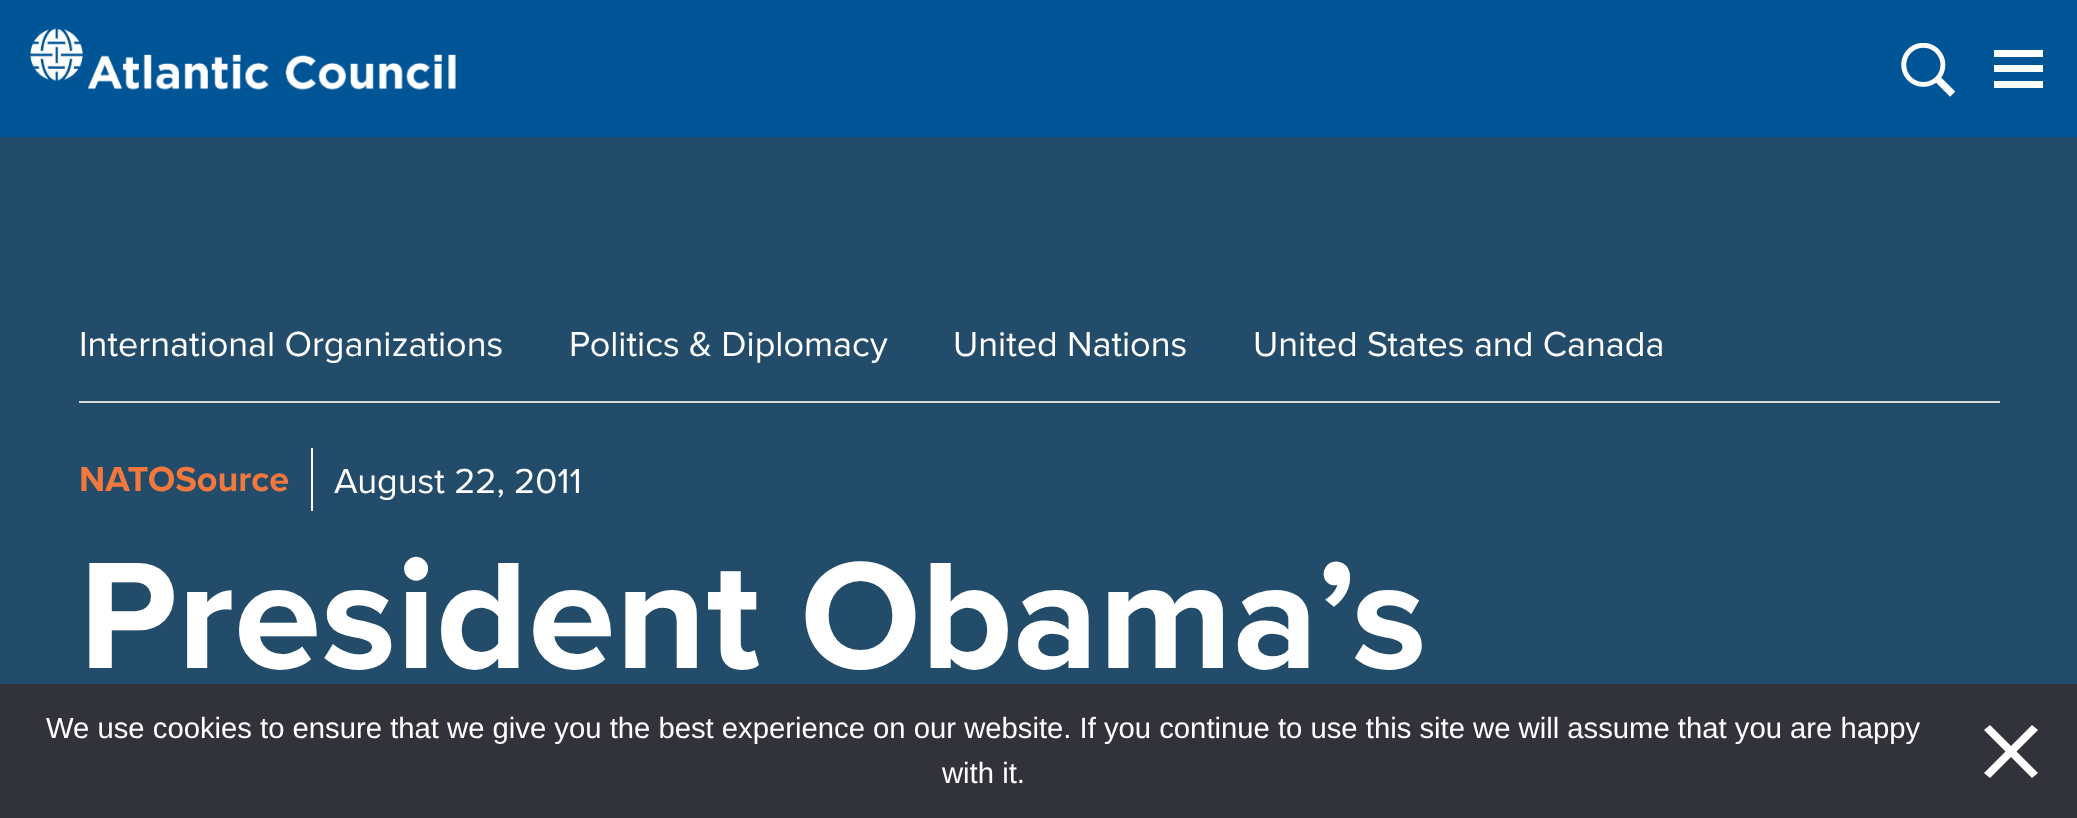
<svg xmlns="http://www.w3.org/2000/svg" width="2077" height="818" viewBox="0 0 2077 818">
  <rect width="100%" height="100%" fill="rgb(35,76,106)"/>
  <rect x="0" y="0" width="2077" height="137" fill="rgb(0,85,150)"/>
  <image x="30" y="28" width="426" height="62" href="pic1.png"/>
  <image x="1901" y="43" width="54" height="54" href="pic2.png"/>
  <rect x="1994" y="50" width="49" height="7" fill="rgb(255,255,255)"/>
  <rect x="1994" y="65" width="49" height="7" fill="rgb(255,255,255)"/>
  <rect x="1994" y="81" width="49" height="7" fill="rgb(255,255,255)"/>
  <rect x="79" y="401" width="1921" height="2" fill="rgb(216,216,216)"/>
  <g font-family="Proxima Nova" font-size="36" fill="rgb(255,255,255)">
    <text x="79" y="356">International Organizations</text>
    <text x="569" y="356">Politics &amp; Diplomacy</text>
    <text x="953" y="356">United Nations</text>
    <text x="1253" y="356">United States and Canada</text>
  </g>
  <text x="79" y="491" font-family="Proxima Nova" font-size="36" font-weight="bold" fill="rgb(242,120,62)">NATOSource</text>
  <rect x="311" y="448" width="2" height="63" fill="rgb(255,255,255)"/>
  <text x="334" y="493" font-family="Proxima Nova" font-size="36" fill="rgb(255,255,255)">August 22, 2011</text>
  <text x="79" y="668" font-family="Proxima Nova" font-size="157.5" font-weight="bold" fill="rgb(255,255,255)">President Obama’s</text>
  <rect x="0" y="684" width="2077" height="134" fill="rgb(50,50,58)"/>
  <g font-family="Liberation Sans" font-size="29.25" fill="rgb(255,255,255)">
    <text x="46" y="738">We use cookies to ensure that we give you the best experience on our website. If you continue to use this site we will assume that you are happy</text>
    <text x="942" y="783">with it.</text>
  </g>
  <path d="M2032 725L2038 730L1990 778L1984 773Z" fill="rgb(255,255,255)"/>
  <path d="M1984 730L1990 725L2038 773L2032 778Z" fill="rgb(255,255,255)"/>
</svg>
